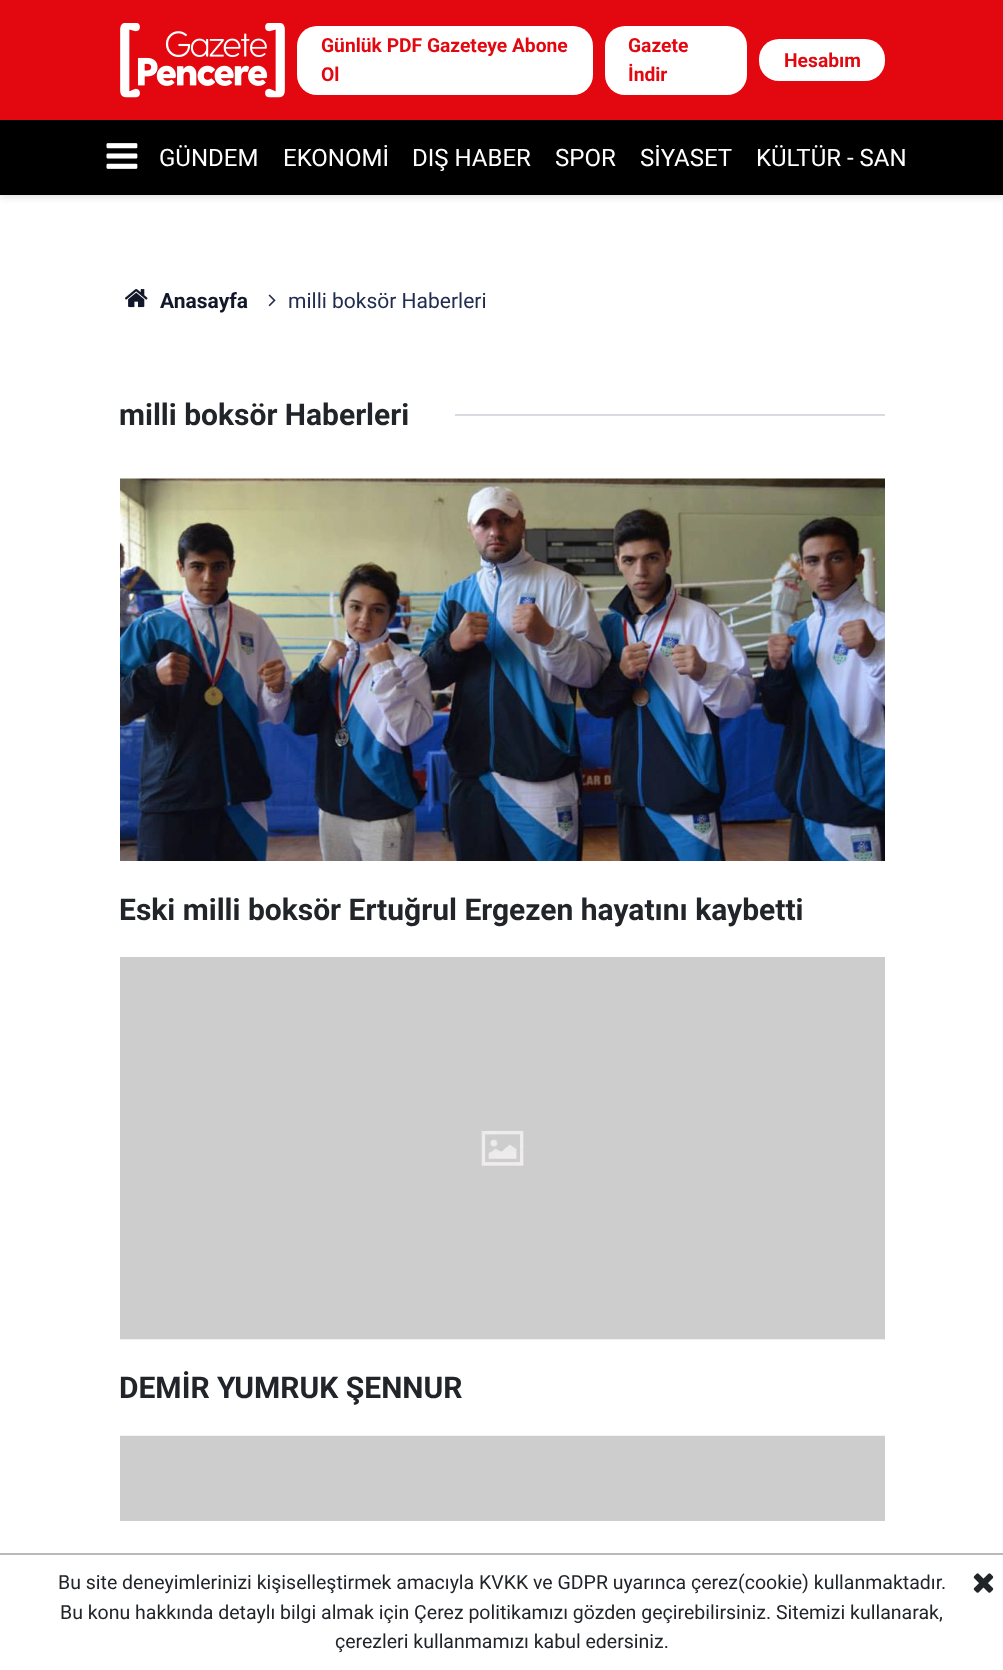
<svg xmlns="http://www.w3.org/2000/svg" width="1003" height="1670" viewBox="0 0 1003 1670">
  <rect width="100%" height="100%" fill="rgb(255,255,255)"/>
  <rect x="0" y="3" width="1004" height="195" fill="rgba(0,0,0,0.1)" filter="blur(3px)"/>
  <rect x="0" y="0" width="1003" height="120" fill="rgb(227,7,16)"/>
  <image x="120" y="23" width="165" height="75" href="pic1.png"/>
  <rect x="297" y="26" width="296" height="69" rx="20" fill="rgb(255,255,255)"/>
  <g font-family="Roboto" font-size="19.25" font-weight="bold" fill="rgb(227,7,16)">
    <text>
      <tspan x="321" y="52">Günlük PDF Gazeteye Abone</tspan>
      <tspan x="321" y="81">Ol</tspan>
    </text>
  </g>
  <rect x="605" y="26" width="142" height="69" rx="20" fill="rgb(255,255,255)"/>
  <g font-family="Roboto" font-size="19.25" font-weight="bold" fill="rgb(227,7,16)">
    <text>
      <tspan x="628" y="52">Gazete</tspan>
      <tspan x="628" y="81">İndir</tspan>
    </text>
  </g>
  <rect x="759" y="39" width="126" height="42" rx="20" fill="rgb(255,255,255)"/>
  <text x="784" y="67" font-family="Roboto" font-size="19.25" font-weight="bold" fill="rgb(227,7,16)">Hesabım</text>
  <rect x="0" y="120" width="1003" height="75" fill="rgb(0,0,0)"/>
  <image x="106" y="143" width="32" height="26" href="pic2.png"/>
  <g font-family="Roboto" font-size="24" fill="rgb(255,255,255)">
    <text x="159" y="166">GÜNDEM</text>
    <text x="283" y="166">EKONOMİ</text>
    <text x="412" y="166">DIŞ HABER</text>
    <text x="555" y="166">SPOR</text>
    <text x="640" y="166">SİYASET</text>
    <text x="756" y="166">KÜLTÜR - SAN</text>
  </g>
  <image x="124" y="289" width="24" height="19" href="pic3.png"/>
  <text x="160" y="308" font-family="Roboto" font-size="21" font-weight="bold" fill="rgb(18,24,42)">Anasayfa</text>
  <image x="268" y="294" width="8" height="13" href="pic4.png"/>
  <text x="288" y="308" font-family="Roboto" font-size="21" fill="rgb(33,44,78)">milli boksör Haberleri</text>
  <text x="119" y="425" font-family="Roboto" font-size="30" font-weight="bold" fill="rgb(33,37,41)">milli boksör Haberleri</text>
  <rect x="455" y="414" width="430" height="2" fill="rgb(217,219,226)"/>
  <image x="120" y="478" width="765" height="383" href="pic5.png"/>
  <text x="119" y="920" font-family="Roboto" font-size="30" font-weight="bold" fill="rgb(33,37,41)">Eski milli boksör Ertuğrul Ergezen hayatını kaybetti</text>
  <rect x="120" y="1339" width="765" height="1" fill="rgb(248,248,248)"/>
  <image x="120" y="957" width="765" height="383" href="pic6.png"/>
  <text x="119" y="1398" font-family="Roboto" font-size="30" font-weight="bold" fill="rgb(33,37,41)">DEMİR YUMRUK ŞENNUR</text>
  <image x="120" y="1435" width="765" height="86" href="pic7.png"/>
  <rect x="0" y="1553" width="1003" height="2" fill="rgb(185,185,185)"/>
  <g font-family="Roboto" font-size="19.5" fill="rgb(33,37,41)">
    <text x="58" y="1589">Bu site deneyimlerinizi kişiselleştirmek amacıyla KVKK ve GDPR uyarınca çerez(cookie) kullanmaktadır.</text>
    <text x="60" y="1619">Bu konu hakkında detaylı bilgi almak için Çerez politikamızı gözden geçirebilirsiniz. Sitemizi kullanarak,</text>
    <text x="335" y="1648">çerezleri kullanmamızı kabul edersiniz.</text>
  </g>
  <image x="973" y="1573" width="21" height="20" href="pic8.png"/>
</svg>
